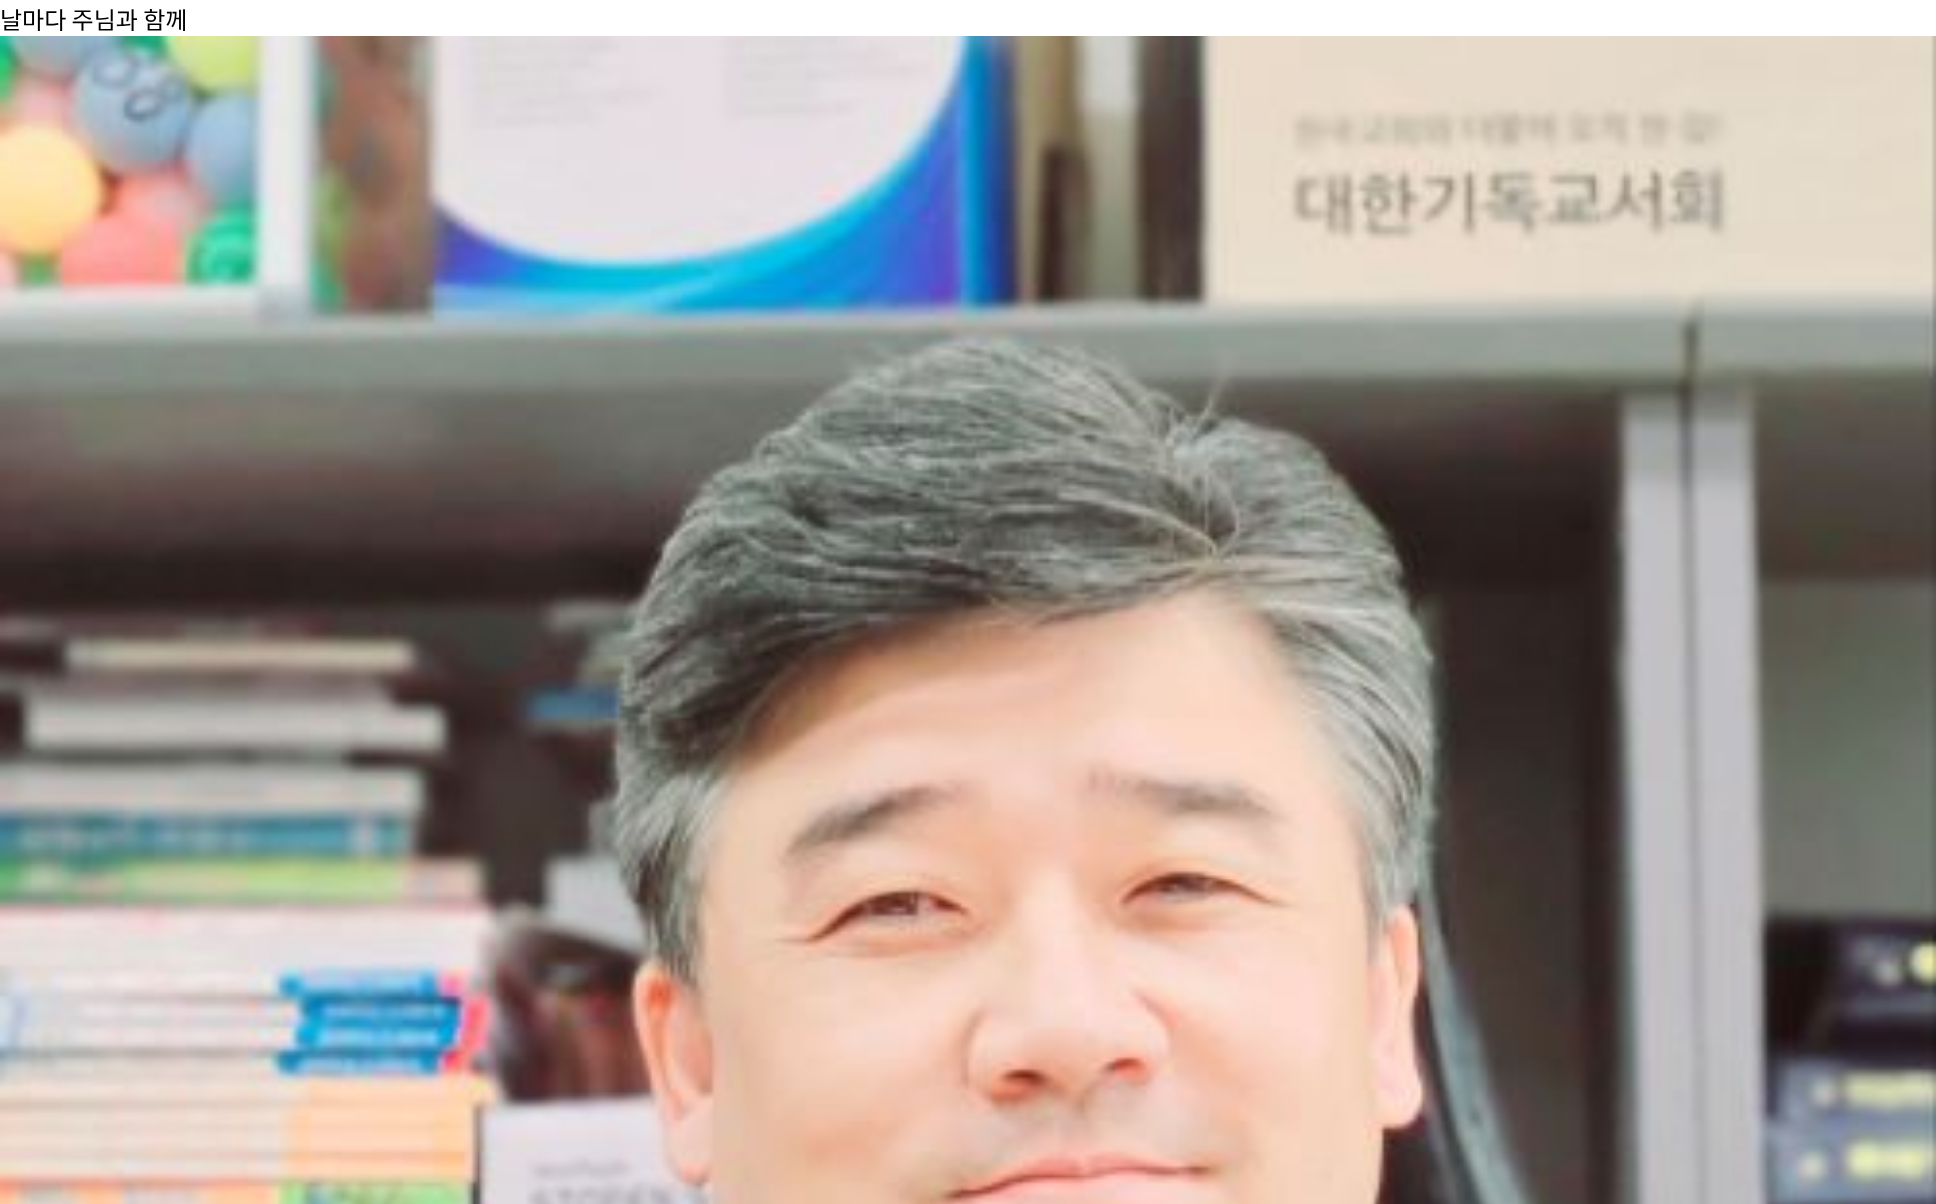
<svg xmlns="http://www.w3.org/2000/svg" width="1936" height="1204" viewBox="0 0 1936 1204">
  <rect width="100%" height="100%" fill="rgb(255,255,255)"/>
  <text x="0" y="29" font-family="Noto Sans KR" font-size="24" fill="rgb(0,0,0)">날마다 주님과 함께</text>
  <image x="0" y="36" width="1936" height="1168" href="pic1.png"/>
</svg>
